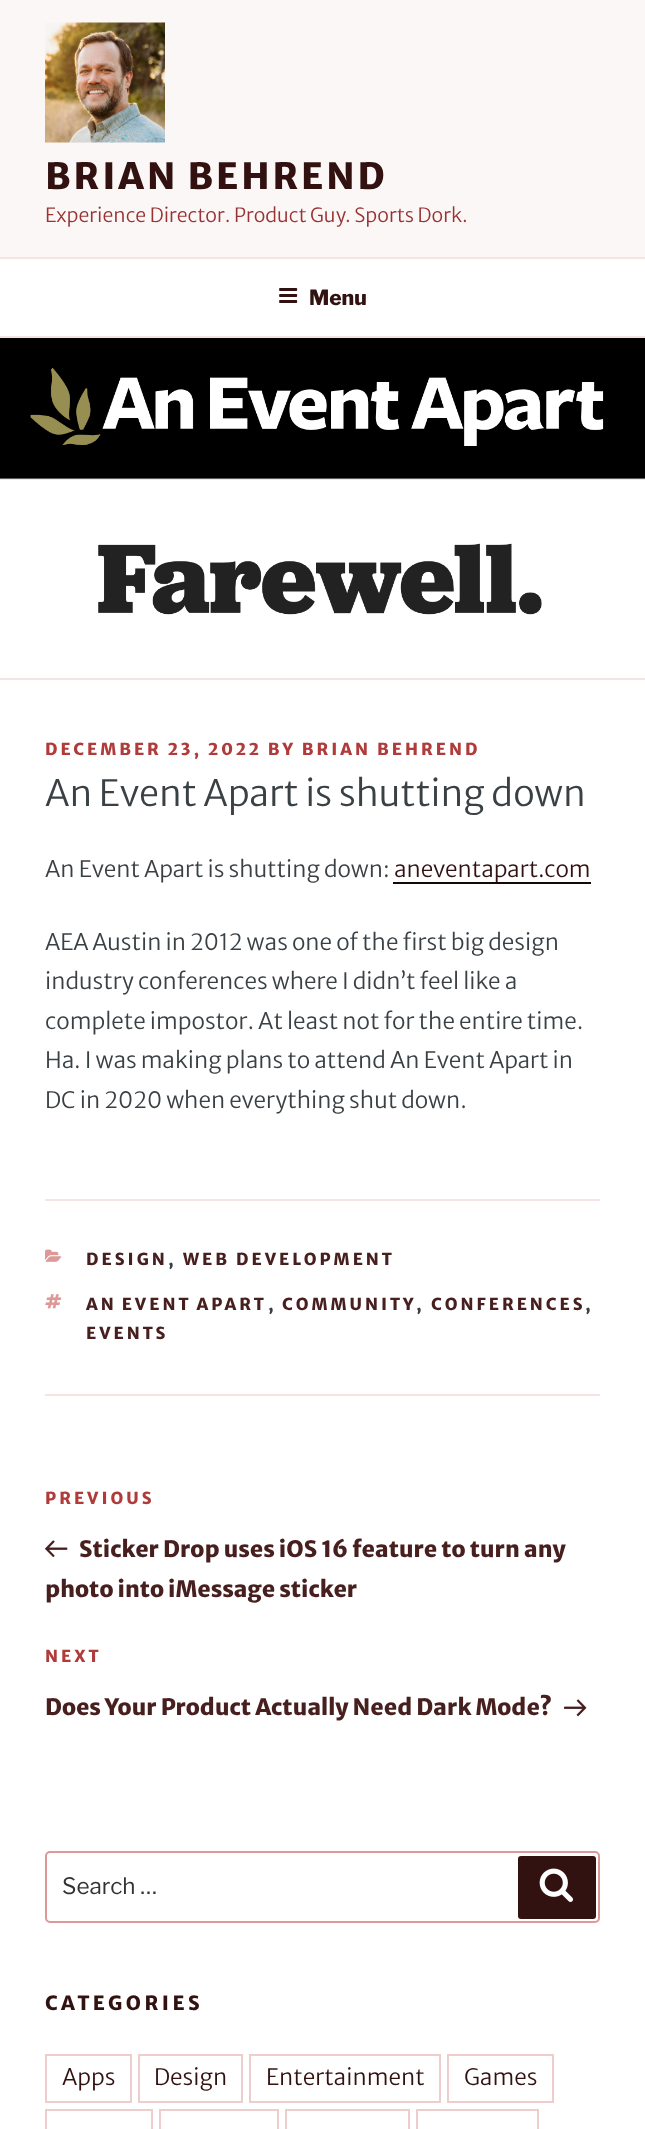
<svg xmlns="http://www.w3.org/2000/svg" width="645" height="2129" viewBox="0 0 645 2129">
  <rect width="100%" height="100%" fill="rgb(255,255,255)"/>
  <rect x="0" y="0" width="645" height="257" fill="rgb(252,247,247)"/>
  <image x="45" y="22" width="120" height="121" href="pic1.png"/>
  <text x="45" y="189" font-family="Merriweather Sans" font-size="36" font-weight="800" letter-spacing="2.9" fill="rgb(50,17,17)">BRIAN BEHREND</text>
  <text x="45" y="222" font-family="Merriweather Sans" font-size="19.5" font-weight="300" fill="rgb(153,51,51)">Experience Director. Product Guy. Sports Dork.</text>
  <rect x="0" y="257" width="645" height="2" fill="rgb(246,228,228)"/>
  <rect x="0" y="336" width="645" height="2" fill="rgb(246,228,228)"/>
  <image x="279" y="288" width="19" height="15" href="pic2.png"/>
  <text x="309" y="305" font-family="Libre Franklin" font-size="21" font-weight="100" fill="rgb(50,17,17)">Menu</text>
  <rect x="0" y="678" width="645" height="2" fill="rgb(246,228,228)"/>
  <image x="0" y="338" width="645" height="340" href="pic3.png"/>
  <text x="45" y="755" font-family="Merriweather Sans" font-size="16.5" font-weight="800" letter-spacing="3" fill="rgb(176,59,59)">DECEMBER 23, 2022 BY BRIAN BEHREND</text>
  <text x="45" y="806" font-family="Merriweather Sans" font-size="36" font-weight="300" fill="rgb(58,65,69)">An Event Apart is shutting down</text>
  <text x="45" y="877" font-family="Merriweather Sans" font-size="22.5" font-weight="300" fill="rgb(58,65,69)">An Event Apart is shutting down:</text>
  <rect x="393" y="882" width="198" height="2" fill="rgb(23,8,8)"/>
  <text x="394" y="877" font-family="Merriweather Sans" font-size="22.5" font-weight="300" fill="rgb(50,17,17)">aneventapart.com</text>
  <g font-family="Merriweather Sans" font-size="22.5" font-weight="300" fill="rgb(58,65,69)">
    <text>
      <tspan x="45" y="950">AEA Austin in 2012 was one of the first big design</tspan>
      <tspan x="45" y="989">industry conferences where I didn’t feel like a</tspan>
      <tspan x="45" y="1029">complete impostor. At least not for the entire time.</tspan>
      <tspan x="45" y="1068">Ha. I was making plans to attend An Event Apart in</tspan>
      <tspan x="45" y="1108">DC in 2020 when everything shut down.</tspan>
    </text>
  </g>
  <rect x="45" y="1199" width="555" height="2" fill="rgb(246,228,228)"/>
  <rect x="45" y="1394" width="555" height="2" fill="rgb(246,228,228)"/>
  <image x="45" y="1249" width="17" height="13" href="pic4.png"/>
  <text x="86" y="1265" font-family="Merriweather Sans" font-size="16.5" font-weight="800" letter-spacing="3" fill="rgb(71,31,31)">DESIGN</text>
  <text x="168" y="1265" font-family="Merriweather Sans" font-size="16.5" font-weight="800" letter-spacing="3" fill="rgb(58,65,69)">,</text>
  <text x="183" y="1265" font-family="Merriweather Sans" font-size="16.5" font-weight="800" letter-spacing="3" fill="rgb(71,31,31)">WEB DEVELOPMENT</text>
  <image x="45" y="1294" width="17" height="15" href="pic5.png"/>
  <text x="86" y="1310" word-spacing="-1" font-family="Merriweather Sans" font-size="16.5" font-weight="800" letter-spacing="3" fill="rgb(71,31,31)">AN EVENT APART</text>
  <text x="268" y="1310" font-family="Merriweather Sans" font-size="16.5" font-weight="800" letter-spacing="3" fill="rgb(58,65,69)">,</text>
  <text x="282" y="1310" font-family="Merriweather Sans" font-size="16.5" font-weight="800" letter-spacing="3" fill="rgb(71,31,31)">COMMUNITY</text>
  <text x="416" y="1310" font-family="Merriweather Sans" font-size="16.5" font-weight="800" letter-spacing="3" fill="rgb(58,65,69)">,</text>
  <text x="431" y="1310" font-family="Merriweather Sans" font-size="16.5" font-weight="800" letter-spacing="3" fill="rgb(71,31,31)">CONFERENCES</text>
  <text x="585" y="1310" font-family="Merriweather Sans" font-size="16.5" font-weight="800" letter-spacing="3" fill="rgb(58,65,69)">,</text>
  <text x="86" y="1339" font-family="Merriweather Sans" font-size="16.5" font-weight="800" letter-spacing="3" fill="rgb(71,31,31)">EVENTS</text>
  <text x="45" y="1504" font-family="Merriweather Sans" font-size="16.5" font-weight="800" letter-spacing="3" fill="rgb(176,59,59)">PREVIOUS</text>
  <image x="45" y="1540" width="23" height="18" href="pic6.png"/>
  <g font-family="Merriweather Sans" font-size="22.5" font-weight="800" fill="rgb(71,31,31)">
    <text x="79" y="1557">Sticker Drop uses iOS 16 feature to turn any</text>
    <text x="45" y="1597">photo into iMessage sticker</text>
  </g>
  <text x="45" y="1662" font-family="Merriweather Sans" font-size="16.5" font-weight="800" letter-spacing="3" fill="rgb(176,59,59)">NEXT</text>
  <text x="45" y="1715" font-family="Merriweather Sans" font-size="22.5" font-weight="800" fill="rgb(71,31,31)">Does Your Product Actually Need Dark Mode?</text>
  <image x="564" y="1699" width="23" height="18" href="pic7.png"/>
  <rect x="46" y="1852" width="553" height="70" rx="4" fill="none" stroke="rgb(221,152,152)" stroke-width="2"/>
  <text x="62" y="1894" font-family="'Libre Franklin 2'" font-size="22.5" font-weight="100" fill="rgb(51,51,51)">Search …</text>
  <rect x="518" y="1856" width="78" height="63" rx="3" fill="rgb(50,17,17)"/>
  <image x="539" y="1868" width="34" height="34" href="pic8.png"/>
  <text x="45" y="2010" font-family="Merriweather Sans" font-size="19.5" font-weight="800" letter-spacing="3.5" fill="rgb(50,17,17)">CATEGORIES</text>
  <rect x="46" y="2055" width="85" height="47" fill="none" stroke="rgb(238,205,205)" stroke-width="2"/>
  <text x="62" y="2085" font-family="Merriweather Sans" font-size="22.5" font-weight="300" fill="rgb(50,17,17)">Apps</text>
  <rect x="139" y="2055" width="103" height="47" fill="none" stroke="rgb(238,205,205)" stroke-width="2"/>
  <text x="154" y="2085" font-family="Merriweather Sans" font-size="22.5" font-weight="300" fill="rgb(50,17,17)">Design</text>
  <rect x="250" y="2055" width="190" height="47" fill="none" stroke="rgb(238,205,205)" stroke-width="2"/>
  <text x="266" y="2085" font-family="Merriweather Sans" font-size="22.5" font-weight="300" fill="rgb(50,17,17)">Entertainment</text>
  <rect x="448" y="2055" width="105" height="47" fill="none" stroke="rgb(238,205,205)" stroke-width="2"/>
  <text x="464" y="2085" font-family="Merriweather Sans" font-size="22.5" font-weight="300" fill="rgb(50,17,17)">Games</text>
  <rect x="46" y="2110" width="106" height="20" fill="none" stroke="rgb(238,205,205)" stroke-width="2"/>
  <rect x="160" y="2110" width="118" height="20" fill="none" stroke="rgb(238,205,205)" stroke-width="2"/>
  <rect x="286" y="2110" width="123" height="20" fill="none" stroke="rgb(238,205,205)" stroke-width="2"/>
  <rect x="417" y="2110" width="121" height="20" fill="none" stroke="rgb(238,205,205)" stroke-width="2"/>
</svg>
